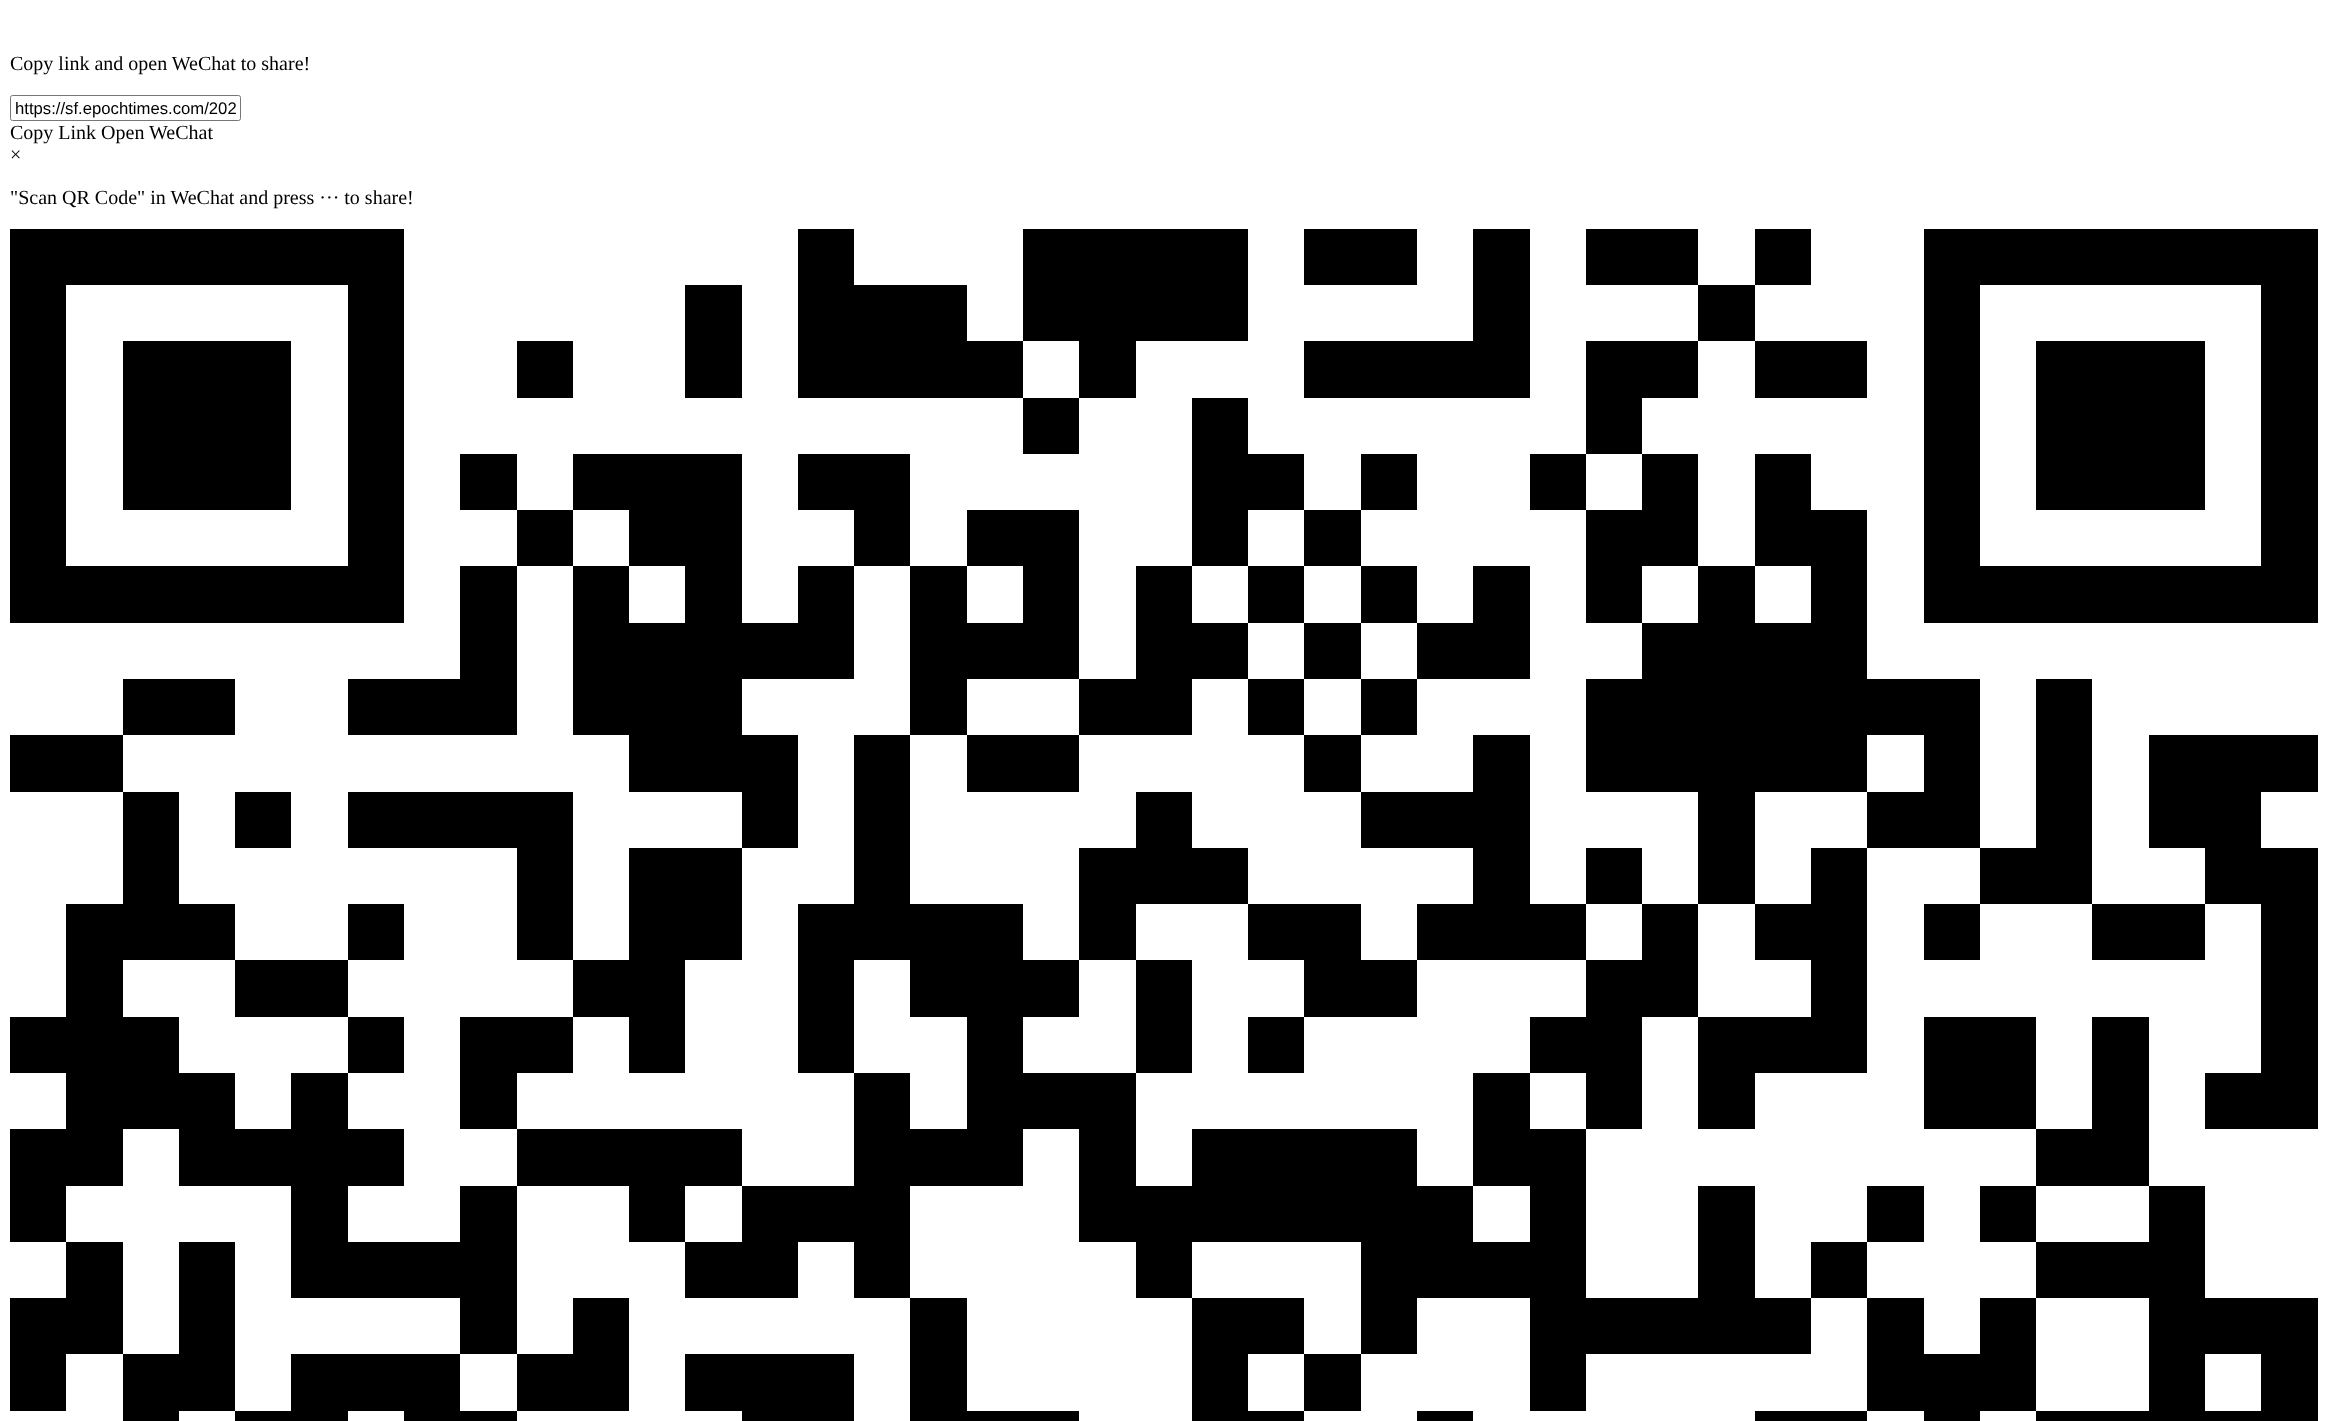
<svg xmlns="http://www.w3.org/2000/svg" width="2327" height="1421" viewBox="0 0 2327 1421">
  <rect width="100%" height="100%" fill="rgb(255,255,255)"/>
  <text x="10" y="70" font-family="Liberation Serif" font-size="20" fill="rgb(0,0,0)">Copy link and open WeChat to share!</text>
  <rect x="10.5" y="95.5" width="230" height="25" rx="2" fill="none" stroke="rgb(118,118,118)"/>
  <text x="15" y="114" font-family="Liberation Sans" font-size="16.7" fill="rgb(0,0,0)">https://sf.epochtimes.com/202</text>
  <g font-family="Liberation Serif" font-size="20" fill="rgb(0,0,0)">
    <text>
      <tspan x="10" y="139">Copy Link Open WeChat</tspan>
      <tspan x="10" y="161">×</tspan>
    </text>
    <text x="10" y="204">"Scan QR Code" in WeChat and press ··· to share!</text>
  </g>
  <image x="10" y="229" width="2308" height="1192" href="pic1.png"/>
</svg>
